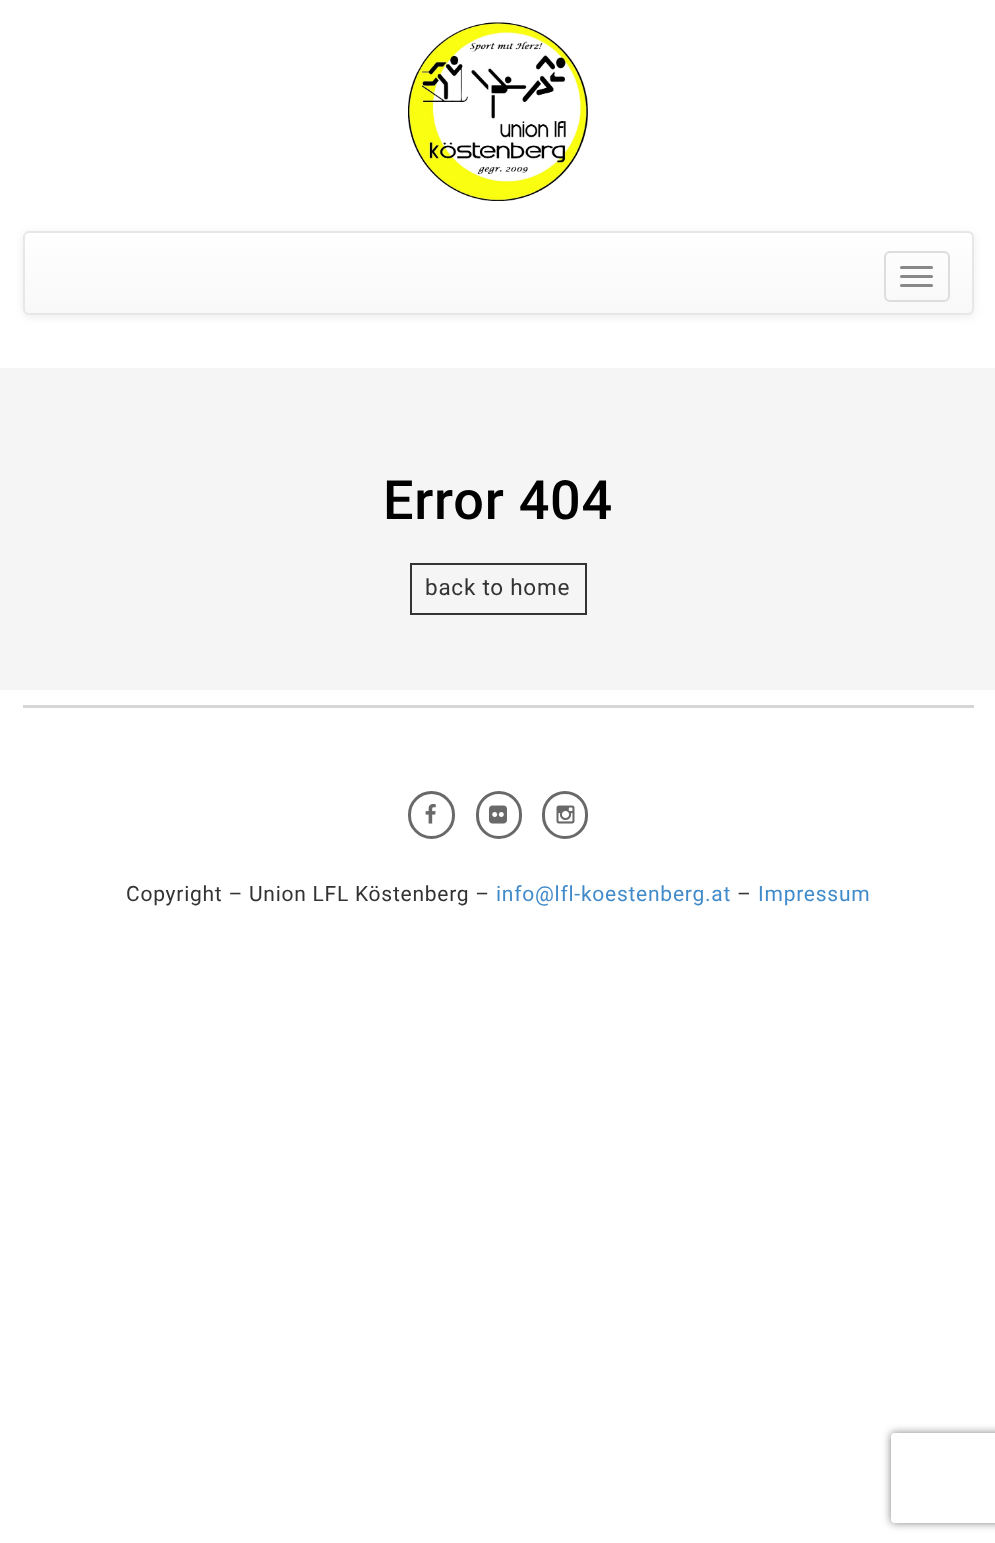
<svg xmlns="http://www.w3.org/2000/svg" width="995" height="1543" viewBox="0 0 995 1543">
  <defs>
    <clipPath id="clip1"><rect x="23" y="231" width="951" height="84" rx="6"/></clipPath>
    <linearGradient id="g1" gradientUnits="userSpaceOnUse" x1="498" y1="232" x2="498" y2="314"><stop offset="0" stop-color="rgb(255,255,255)"/><stop offset="1" stop-color="rgb(248,248,248)"/></linearGradient>
    <clipPath id="clip2"><path d="M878 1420H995V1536H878ZM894 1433H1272C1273.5 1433 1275 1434.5 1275 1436V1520C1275 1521.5 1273.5 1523 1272 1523H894C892.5 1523 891 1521.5 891 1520V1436C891 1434.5 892.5 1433 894 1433Z" clip-rule="evenodd"/></clipPath>
  </defs>
  <rect width="100%" height="100%" fill="rgb(255,255,255)"/>
  <image x="408" y="22" width="180" height="179" href="pic1.png"/>
  <rect x="23" y="233" width="951" height="84" rx="6" fill="rgba(0,0,0,0.07)" filter="blur(4px)"/>
  <g clip-path="url(#clip1)">
    <rect x="23" y="233" width="951" height="81" fill="url(#g1)"/>
  </g>
  <rect x="24" y="232" width="949" height="82" rx="5" fill="none" stroke="rgb(231,231,231)" stroke-width="2"/>
  <rect x="885" y="252" width="64" height="49" rx="5" fill="none" stroke="rgb(221,221,221)" stroke-width="2"/>
  <rect x="900" y="266" width="33" height="3" rx="1.5" fill="rgb(136,136,136)"/>
  <rect x="900" y="275" width="33" height="3" rx="1.5" fill="rgb(136,136,136)"/>
  <rect x="900" y="284" width="33" height="3" rx="1.5" fill="rgb(136,136,136)"/>
  <rect x="0" y="368" width="995" height="322" fill="rgb(245,245,245)"/>
  <text x="383" y="519" font-family="Roboto" font-size="54" font-weight="500" letter-spacing="0.75" fill="rgb(0,0,0)">Error 404</text>
  <rect x="411" y="564" width="175" height="50" fill="none" stroke="rgb(52,52,52)" stroke-width="2"/>
  <text x="425" y="595" font-family="Roboto" font-size="22.5" letter-spacing="0.75" fill="rgb(51,51,51)">back to home</text>
  <rect x="23" y="705" width="951" height="3" fill="rgb(214,214,214)"/>
  <rect x="409.5" y="792.5" width="44" height="45" rx="22" fill="none" stroke="rgb(105,105,105)" stroke-width="3"/>
  <image x="425" y="804" width="11" height="20" href="pic2.png"/>
  <rect x="477.5" y="792.5" width="43" height="45" rx="21.5" fill="none" stroke="rgb(105,105,105)" stroke-width="3"/>
  <image x="489" y="805" width="18" height="19" href="pic3.png"/>
  <rect x="543.5" y="792.5" width="43" height="45" rx="21.5" fill="none" stroke="rgb(105,105,105)" stroke-width="3"/>
  <image x="556" y="805" width="19" height="19" href="pic4.png"/>
  <text x="126" y="901" font-family="Roboto" font-size="21" letter-spacing="0.75" fill="rgb(51,51,51)">Copyright – Union LFL Köstenberg –</text>
  <text x="496" y="901" font-family="Roboto" font-size="21" letter-spacing="0.75" fill="rgb(66,139,202)">info@lfl-koestenberg.at</text>
  <text x="737" y="901" font-family="Roboto" font-size="21" letter-spacing="0.75" fill="rgb(51,51,51)">–</text>
  <text x="758" y="901" font-family="Roboto" font-size="21" letter-spacing="0.75" fill="rgb(66,139,202)">Impressum</text>
  <g clip-path="url(#clip2)">
    <rect x="891" y="1433" width="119" height="90" rx="3" fill="rgb(128,128,128)" filter="blur(4px)"/>
  </g>
</svg>
